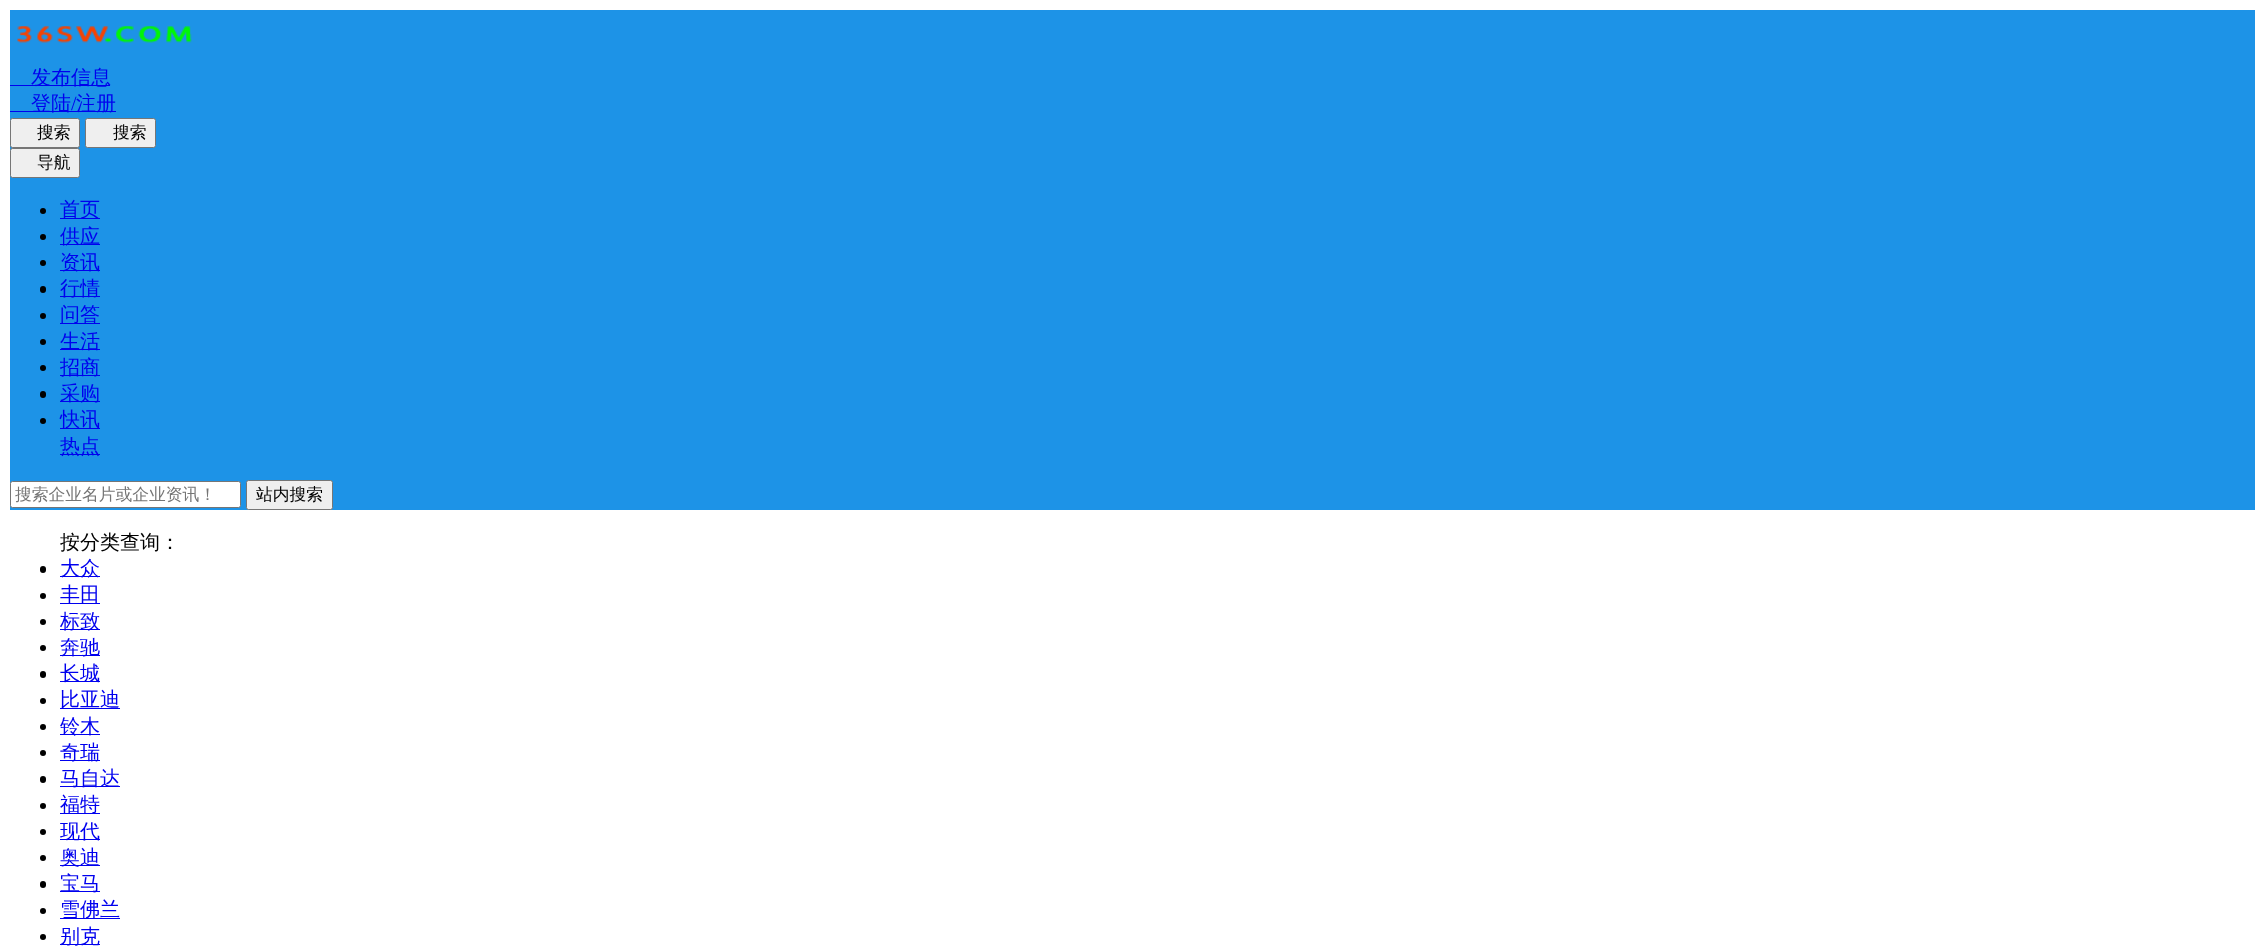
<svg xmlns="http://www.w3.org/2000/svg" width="2264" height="948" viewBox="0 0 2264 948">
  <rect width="100%" height="100%" fill="rgb(255,255,255)"/>
  <rect x="10" y="10" width="2245" height="500" fill="rgb(29,147,231)"/>
  <image x="17" y="26" width="175" height="17" href="pic1.png"/>
  <rect x="10" y="85" width="100" height="1" fill="rgb(0,0,238)"/>
  <text x="31" y="84" font-family="WenQuanYi Zen Hei" font-size="20" font-weight="500" fill="rgb(0,0,238)">发布信息</text>
  <rect x="10" y="111" width="106" height="1" fill="rgb(0,0,238)"/>
  <text x="31" y="110" font-family="WenQuanYi Zen Hei" font-size="20" font-weight="500" fill="rgb(0,0,238)">登陆</text>
  <text x="71" y="110" font-family="Liberation Serif" font-size="20" fill="rgb(0,0,238)">/</text>
  <text x="76" y="110" font-family="WenQuanYi Zen Hei" font-size="20" font-weight="500" fill="rgb(0,0,238)">注册</text>
  <rect x="10.5" y="118.5" width="69" height="29" rx="2" fill="rgb(239,239,239)" stroke="rgb(118,118,118)"/>
  <text x="37" y="138" font-family="WenQuanYi Zen Hei" font-size="16.75" font-weight="500" fill="rgb(0,0,0)">搜索</text>
  <rect x="85.5" y="118.5" width="70" height="29" rx="2" fill="rgb(239,239,239)" stroke="rgb(118,118,118)"/>
  <text x="113" y="138" font-family="WenQuanYi Zen Hei" font-size="16.75" font-weight="500" fill="rgb(0,0,0)">搜索</text>
  <rect x="10.5" y="148.5" width="69" height="29" rx="2" fill="rgb(239,239,239)" stroke="rgb(118,118,118)"/>
  <text x="37" y="168" font-family="WenQuanYi Zen Hei" font-size="16.75" font-weight="500" fill="rgb(0,0,0)">导航</text>
  <circle cx="43" cy="211" r="3" fill="rgb(0,0,0)"/>
  <rect x="60" y="218" width="40" height="1" fill="rgb(0,0,238)"/>
  <text x="60" y="216" font-family="WenQuanYi Zen Hei" font-size="20" font-weight="500" fill="rgb(0,0,238)">首页</text>
  <circle cx="43" cy="237" r="3" fill="rgb(0,0,0)"/>
  <rect x="60" y="244" width="40" height="1" fill="rgb(0,0,238)"/>
  <text x="60" y="243" font-family="WenQuanYi Zen Hei" font-size="20" font-weight="500" fill="rgb(0,0,238)">供应</text>
  <circle cx="43" cy="263" r="3" fill="rgb(0,0,0)"/>
  <rect x="60" y="270" width="40" height="1" fill="rgb(0,0,238)"/>
  <text x="60" y="269" font-family="WenQuanYi Zen Hei" font-size="20" font-weight="500" fill="rgb(0,0,238)">资讯</text>
  <rect x="40" y="286" width="6" height="7" rx="3" fill="rgb(0,0,0)"/>
  <rect x="60" y="296" width="40" height="1" fill="rgb(0,0,238)"/>
  <text x="60" y="295" font-family="WenQuanYi Zen Hei" font-size="20" font-weight="500" fill="rgb(0,0,238)">行情</text>
  <circle cx="43" cy="316" r="3" fill="rgb(0,0,0)"/>
  <rect x="60" y="323" width="40" height="1" fill="rgb(0,0,238)"/>
  <text x="60" y="321" font-family="WenQuanYi Zen Hei" font-size="20" font-weight="500" fill="rgb(0,0,238)">问答</text>
  <circle cx="43" cy="342" r="3" fill="rgb(0,0,0)"/>
  <rect x="60" y="349" width="40" height="1" fill="rgb(0,0,238)"/>
  <text x="60" y="348" font-family="WenQuanYi Zen Hei" font-size="20" font-weight="500" fill="rgb(0,0,238)">生活</text>
  <circle cx="43" cy="368" r="3" fill="rgb(0,0,0)"/>
  <rect x="60" y="375" width="40" height="1" fill="rgb(0,0,238)"/>
  <text x="60" y="374" font-family="WenQuanYi Zen Hei" font-size="20" font-weight="500" fill="rgb(0,0,238)">招商</text>
  <rect x="40" y="391" width="6" height="7" rx="3" fill="rgb(0,0,0)"/>
  <rect x="60" y="401" width="40" height="1" fill="rgb(0,0,238)"/>
  <text x="60" y="400" font-family="WenQuanYi Zen Hei" font-size="20" font-weight="500" fill="rgb(0,0,238)">采购</text>
  <circle cx="43" cy="421" r="3" fill="rgb(0,0,0)"/>
  <rect x="60" y="428" width="40" height="1" fill="rgb(0,0,238)"/>
  <text x="60" y="426" font-family="WenQuanYi Zen Hei" font-size="20" font-weight="500" fill="rgb(0,0,238)">快讯</text>
  <rect x="60" y="454" width="40" height="1" fill="rgb(0,0,238)"/>
  <text x="60" y="453" font-family="WenQuanYi Zen Hei" font-size="20" font-weight="500" fill="rgb(0,0,238)">热点</text>
  <rect x="10.5" y="481.5" width="230" height="26" rx="2" fill="rgb(255,255,255)" stroke="rgb(118,118,118)"/>
  <text x="15" y="500" font-family="WenQuanYi Zen Hei" font-size="16.75" font-weight="500" fill="rgb(117,117,117)">搜索企业名片或企业资讯！</text>
  <rect x="246.5" y="480.5" width="86" height="29" rx="2" fill="rgb(239,239,239)" stroke="rgb(118,118,118)"/>
  <text x="256" y="500" font-family="WenQuanYi Zen Hei" font-size="16.75" font-weight="500" fill="rgb(0,0,0)">站内搜索</text>
  <text x="60" y="549" font-family="WenQuanYi Zen Hei" font-size="20" font-weight="500" fill="rgb(0,0,0)">按分类查询：</text>
  <rect x="40" y="566" width="6" height="7" rx="3" fill="rgb(0,0,0)"/>
  <rect x="60" y="576" width="40" height="1" fill="rgb(0,0,238)"/>
  <text x="60" y="575" font-family="WenQuanYi Zen Hei" font-size="20" font-weight="500" fill="rgb(0,0,238)">大众</text>
  <circle cx="43" cy="596" r="3" fill="rgb(0,0,0)"/>
  <rect x="60" y="603" width="40" height="1" fill="rgb(0,0,238)"/>
  <text x="60" y="601" font-family="WenQuanYi Zen Hei" font-size="20" font-weight="500" fill="rgb(0,0,238)">丰田</text>
  <circle cx="43" cy="622" r="3" fill="rgb(0,0,0)"/>
  <rect x="60" y="629" width="40" height="1" fill="rgb(0,0,238)"/>
  <text x="60" y="628" font-family="WenQuanYi Zen Hei" font-size="20" font-weight="500" fill="rgb(0,0,238)">标致</text>
  <circle cx="43" cy="648" r="3" fill="rgb(0,0,0)"/>
  <rect x="60" y="655" width="40" height="1" fill="rgb(0,0,238)"/>
  <text x="60" y="654" font-family="WenQuanYi Zen Hei" font-size="20" font-weight="500" fill="rgb(0,0,238)">奔驰</text>
  <rect x="40" y="671" width="6" height="7" rx="3" fill="rgb(0,0,0)"/>
  <rect x="60" y="681" width="40" height="1" fill="rgb(0,0,238)"/>
  <text x="60" y="680" font-family="WenQuanYi Zen Hei" font-size="20" font-weight="500" fill="rgb(0,0,238)">长城</text>
  <circle cx="43" cy="701" r="3" fill="rgb(0,0,0)"/>
  <rect x="60" y="708" width="60" height="1" fill="rgb(0,0,238)"/>
  <text x="60" y="706" font-family="WenQuanYi Zen Hei" font-size="20" font-weight="500" fill="rgb(0,0,238)">比亚迪</text>
  <circle cx="43" cy="727" r="3" fill="rgb(0,0,0)"/>
  <rect x="60" y="734" width="40" height="1" fill="rgb(0,0,238)"/>
  <text x="60" y="733" font-family="WenQuanYi Zen Hei" font-size="20" font-weight="500" fill="rgb(0,0,238)">铃木</text>
  <circle cx="43" cy="753" r="3" fill="rgb(0,0,0)"/>
  <rect x="60" y="760" width="40" height="1" fill="rgb(0,0,238)"/>
  <text x="60" y="759" font-family="WenQuanYi Zen Hei" font-size="20" font-weight="500" fill="rgb(0,0,238)">奇瑞</text>
  <rect x="40" y="776" width="6" height="7" rx="3" fill="rgb(0,0,0)"/>
  <rect x="60" y="786" width="60" height="1" fill="rgb(0,0,238)"/>
  <text x="60" y="785" font-family="WenQuanYi Zen Hei" font-size="20" font-weight="500" fill="rgb(0,0,238)">马自达</text>
  <circle cx="43" cy="806" r="3" fill="rgb(0,0,0)"/>
  <rect x="60" y="813" width="40" height="1" fill="rgb(0,0,238)"/>
  <text x="60" y="811" font-family="WenQuanYi Zen Hei" font-size="20" font-weight="500" fill="rgb(0,0,238)">福特</text>
  <circle cx="43" cy="832" r="3" fill="rgb(0,0,0)"/>
  <rect x="60" y="839" width="40" height="1" fill="rgb(0,0,238)"/>
  <text x="60" y="838" font-family="WenQuanYi Zen Hei" font-size="20" font-weight="500" fill="rgb(0,0,238)">现代</text>
  <circle cx="43" cy="858" r="3" fill="rgb(0,0,0)"/>
  <rect x="60" y="865" width="40" height="1" fill="rgb(0,0,238)"/>
  <text x="60" y="864" font-family="WenQuanYi Zen Hei" font-size="20" font-weight="500" fill="rgb(0,0,238)">奥迪</text>
  <rect x="40" y="881" width="6" height="7" rx="3" fill="rgb(0,0,0)"/>
  <rect x="60" y="891" width="40" height="1" fill="rgb(0,0,238)"/>
  <text x="60" y="890" font-family="WenQuanYi Zen Hei" font-size="20" font-weight="500" fill="rgb(0,0,238)">宝马</text>
  <circle cx="43" cy="911" r="3" fill="rgb(0,0,0)"/>
  <rect x="60" y="918" width="60" height="1" fill="rgb(0,0,238)"/>
  <text x="60" y="916" font-family="WenQuanYi Zen Hei" font-size="20" font-weight="500" fill="rgb(0,0,238)">雪佛兰</text>
  <circle cx="43" cy="937" r="3" fill="rgb(0,0,0)"/>
  <rect x="60" y="944" width="40" height="1" fill="rgb(0,0,238)"/>
  <text x="60" y="943" font-family="WenQuanYi Zen Hei" font-size="20" font-weight="500" fill="rgb(0,0,238)">别克</text>
</svg>
